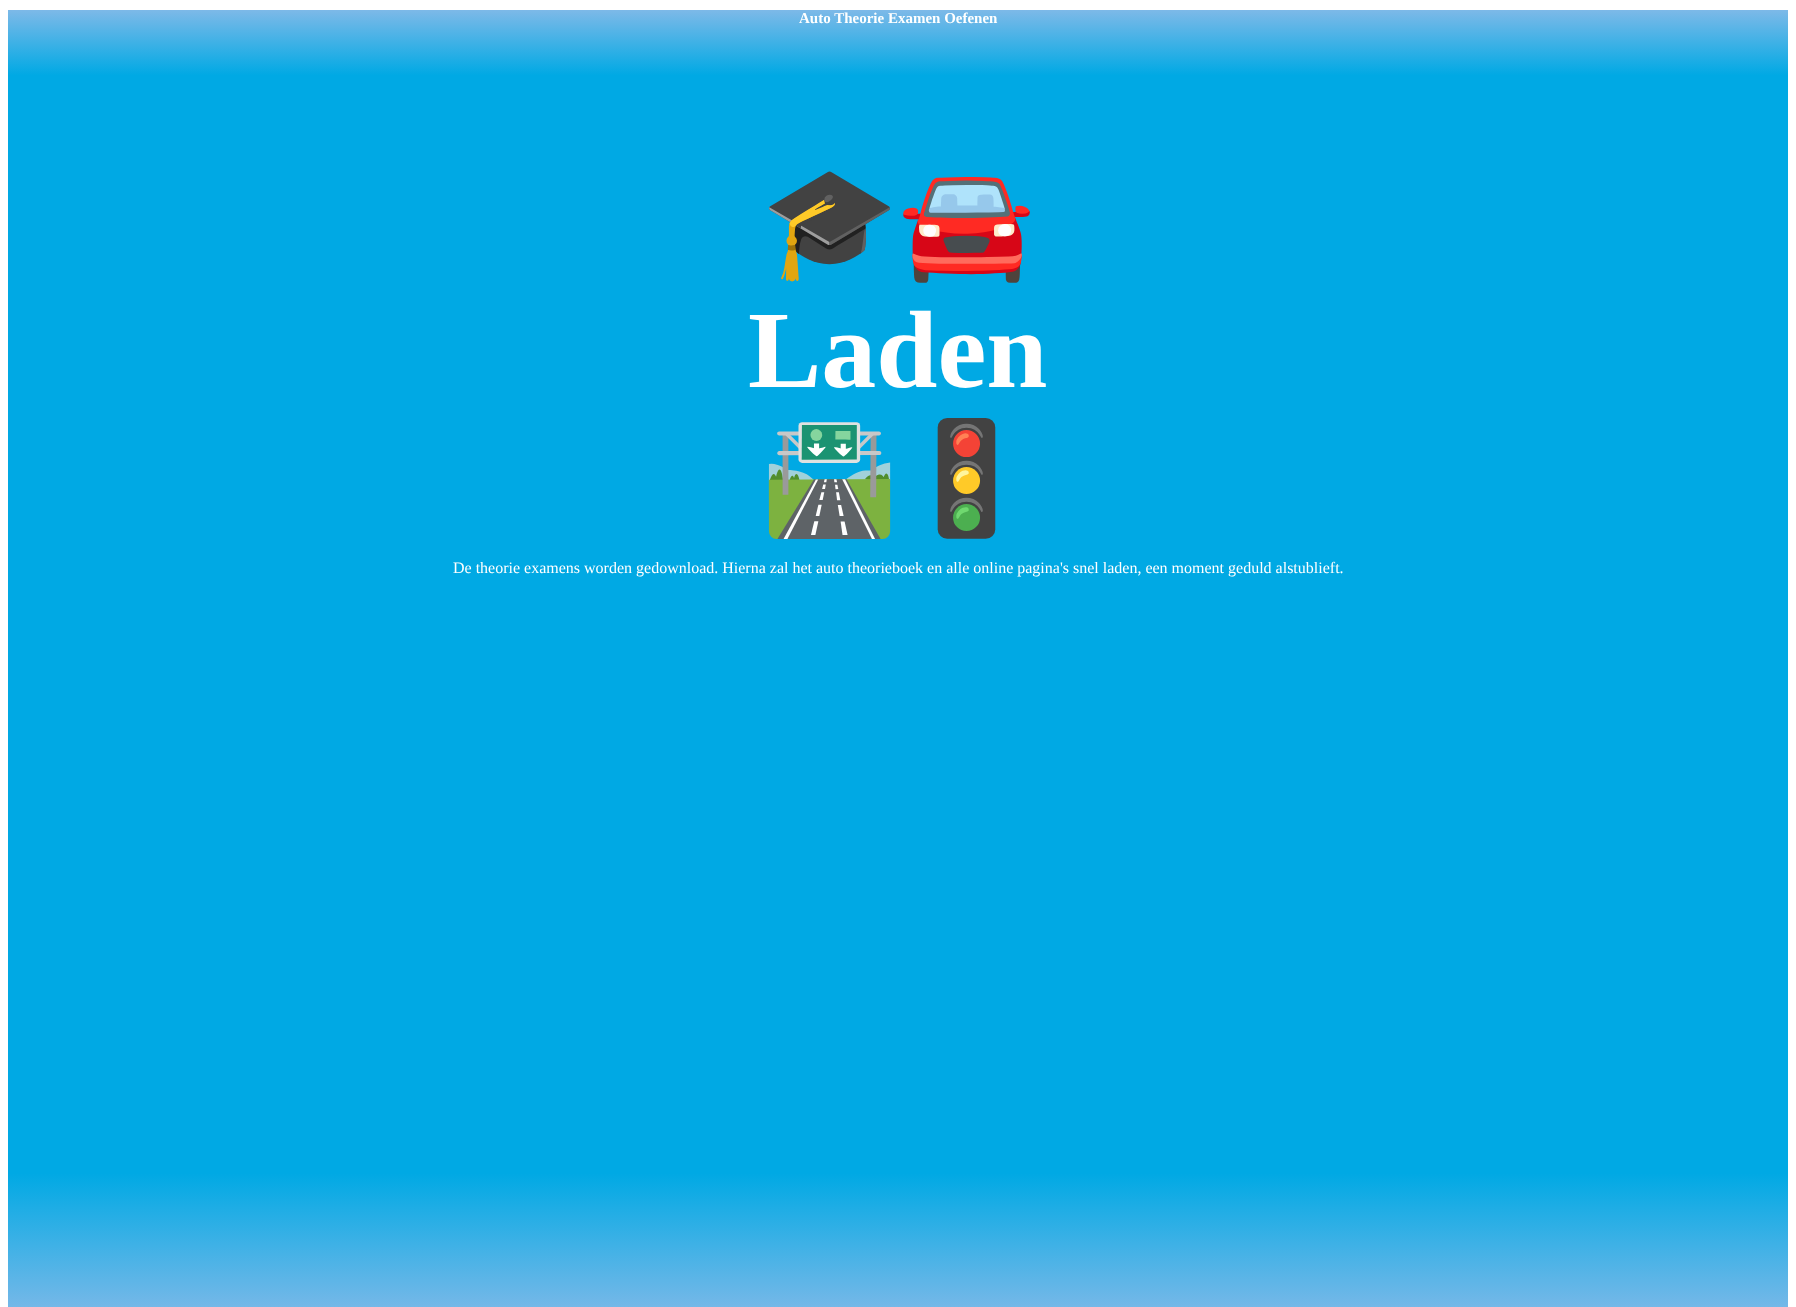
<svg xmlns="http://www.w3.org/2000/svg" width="1796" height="1307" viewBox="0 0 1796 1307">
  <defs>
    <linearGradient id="g1" gradientUnits="userSpaceOnUse" x1="898" y1="10" x2="898" y2="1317"><stop offset="0" stop-color="rgb(125,185,232)"/><stop offset="0.05" stop-color="rgb(0,169,228)"/><stop offset="0.89" stop-color="rgb(0,169,228)"/><stop offset="1" stop-color="rgb(125,185,232)"/></linearGradient>
  </defs>
  <rect width="100%" height="100%" fill="rgb(255,255,255)"/>
  <rect x="8" y="10" width="1780" height="1297" fill="url(#g1)"/>
  <text x="799" y="23" font-family="Liberation Serif" font-size="15" font-weight="bold" fill="rgb(255,255,255)">Auto Theorie Examen Oefenen</text>
  <text x="761" y="260" font-family="Noto Color Emoji" font-size="110" font-weight="bold" fill="rgb(255,255,255)">🎓🚘</text>
  <text x="748" y="387" font-family="Liberation Serif" font-size="110" font-weight="bold" fill="rgb(255,255,255)">Laden</text>
  <text x="761" y="516" font-family="Noto Color Emoji" font-size="110" font-weight="bold" fill="rgb(255,255,255)">🛣️🚦</text>
  <text x="453" y="573" font-family="Liberation Serif" font-size="16" fill="rgb(255,255,255)">De theorie examens worden gedownload. Hierna zal het auto theorieboek en alle online pagina's snel laden, een moment geduld alstublieft.</text>
</svg>
